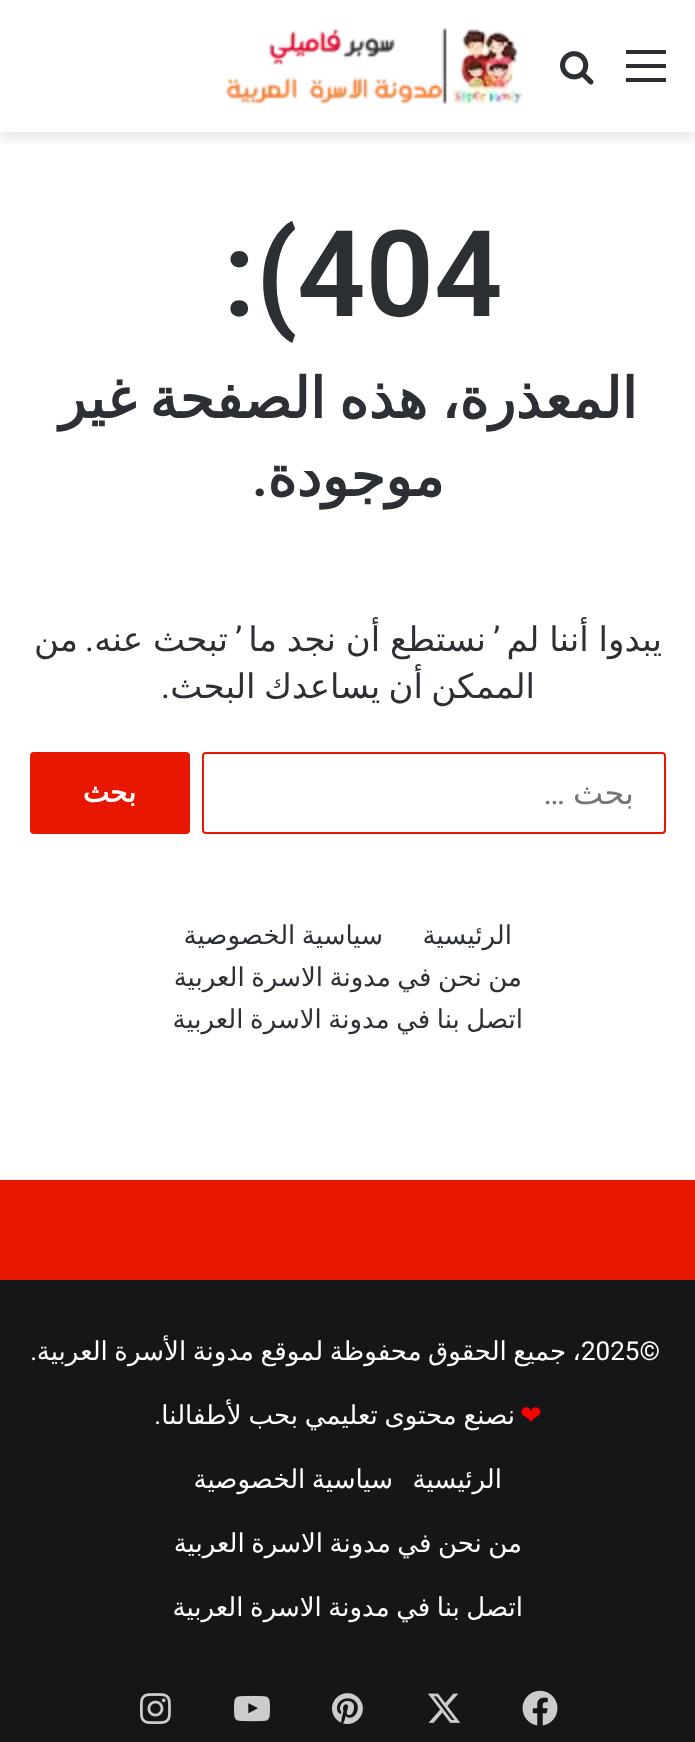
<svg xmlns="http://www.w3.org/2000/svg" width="695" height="1742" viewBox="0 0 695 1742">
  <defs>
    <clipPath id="clip1"><rect x="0" y="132" width="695" height="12"/></clipPath>
  </defs>
  <rect width="100%" height="100%" fill="rgb(255,255,255)"/>
  <g clip-path="url(#clip1)">
    <rect x="0" y="6" width="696" height="132" fill="rgba(0,0,0,0.1)" filter="blur(7px)"/>
  </g>
  <rect x="626" y="64" width="40" height="4" fill="rgb(44,47,52)"/>
  <rect x="626" y="50" width="40" height="4" fill="rgb(44,47,52)"/>
  <rect x="626" y="78" width="40" height="4" fill="rgb(44,47,52)"/>
  <image x="560" y="51" width="34" height="34" href="pic1.png"/>
  <image x="226" y="28" width="297" height="76" href="pic2.png"/>
  <g font-family="Roboto" font-size="120" font-weight="600" fill="rgb(44,47,52)">
    <text x="297" y="316">404</text>
    <text x="223" y="316">:(</text>
  </g>
  <g font-family="DejaVu Sans" font-size="56" font-weight="bold" direction="rtl" fill="rgb(44,47,52)">
    <text x="637" y="418" word-spacing="-4">المعذرة، هذه الصفحة غير</text>
    <text x="444" y="496">موجودة</text>
  </g>
  <text x="268" y="496" font-family="Roboto" font-size="56" font-weight="600" direction="rtl" fill="rgb(44,47,52)">.</text>
  <text x="662" y="651" word-spacing="-1" font-family="DejaVu Sans" font-size="34" direction="rtl" fill="rgb(44,47,52)">يبدوا أننا لم</text>
  <text x="500" y="651" font-family="Roboto" font-size="34" direction="rtl" fill="rgb(44,47,52)">’</text>
  <text x="486" y="651" word-spacing="-1" font-family="DejaVu Sans" font-size="34" direction="rtl" fill="rgb(44,47,52)">نستطع أن نجد ما</text>
  <text x="242" y="651" font-family="Roboto" font-size="34" direction="rtl" fill="rgb(44,47,52)">’</text>
  <text x="228" y="651" word-spacing="-1" font-family="DejaVu Sans" font-size="34" direction="rtl" fill="rgb(44,47,52)">تبحث عنه</text>
  <text x="94" y="651" font-family="Roboto" font-size="34" direction="rtl" fill="rgb(44,47,52)">.</text>
  <g font-family="DejaVu Sans" font-size="34" direction="rtl" fill="rgb(44,47,52)">
    <text x="78" y="651">من</text>
    <text x="535" y="698" word-spacing="-2.5">الممكن أن يساعدك البحث</text>
  </g>
  <text x="170" y="698" font-family="Roboto" font-size="34" direction="rtl" fill="rgb(44,47,52)">.</text>
  <rect x="203" y="753" width="462" height="80" rx="3" fill="none" stroke="rgb(232,23,0)" stroke-width="2"/>
  <text x="634" y="804" font-family="DejaVu Sans" font-size="32" direction="rtl" fill="rgb(117,117,117)">بحث</text>
  <text x="565" y="804" font-family="Roboto" font-size="32" direction="rtl" fill="rgb(117,117,117)">…</text>
  <rect x="30" y="752" width="160" height="82" rx="4" fill="rgb(232,23,0)"/>
  <text x="136" y="802" font-family="DejaVu Sans" font-size="28" font-weight="bold" direction="rtl" fill="rgb(255,255,255)">بحث</text>
  <g font-family="DejaVu Sans" font-size="26" direction="rtl" fill="rgb(44,47,52)">
    <text x="512" y="944">الرئيسية</text>
    <text x="383" y="944" word-spacing="-1.75">سياسية الخصوصية</text>
    <text x="522" y="986" word-spacing="-1.75">من نحن في مدونة الاسرة العربية</text>
    <text x="523" y="1028" word-spacing="-1.75">اتصل بنا في مدونة الاسرة العربية</text>
  </g>
  <rect x="0" y="1180" width="695" height="100" fill="rgb(232,23,0)"/>
  <rect x="0" y="1280" width="695" height="462" fill="rgb(22,22,25)"/>
  <text x="581" y="1360" font-family="Roboto" font-size="26" fill="rgb(255,255,255)">2025©</text>
  <text x="581" y="1360" word-spacing="-1.75" font-family="DejaVu Sans" font-size="26" direction="rtl" fill="rgb(255,255,255)">، جميع الحقوق محفوظة لموقع مدونة الأسرة العربية</text>
  <text x="37" y="1360" font-family="Roboto" font-size="26" direction="rtl" fill="rgb(255,255,255)">.</text>
  <text x="520" y="1424" font-family="DejaVu Sans" font-size="26" fill="rgb(255,0,0)">❤</text>
  <text x="515" y="1424" word-spacing="-1.5" font-family="DejaVu Sans" font-size="26" direction="rtl" fill="rgb(255,255,255)">نصنع محتوى تعليمي بحب لأطفالنا</text>
  <text x="161" y="1424" font-family="Roboto" font-size="26" direction="rtl" fill="rgb(255,255,255)">.</text>
  <g font-family="DejaVu Sans" font-size="26" direction="rtl" fill="rgb(255,255,255)">
    <text x="502" y="1488">الرئيسية</text>
    <text x="393" y="1488" word-spacing="-1.75">سياسية الخصوصية</text>
    <text x="522" y="1552" word-spacing="-1.75">من نحن في مدونة الاسرة العربية</text>
    <text x="523" y="1616" word-spacing="-1.75">اتصل بنا في مدونة الاسرة العربية</text>
  </g>
  <image x="522" y="1690" width="36" height="36" href="pic3.png"/>
  <image x="428" y="1693" width="33" height="30" href="pic4.png"/>
  <image x="332" y="1693" width="31" height="31" href="pic5.png"/>
  <image x="234" y="1695" width="36" height="27" href="pic6.png"/>
  <image x="140" y="1693" width="31" height="31" href="pic7.png"/>
</svg>
